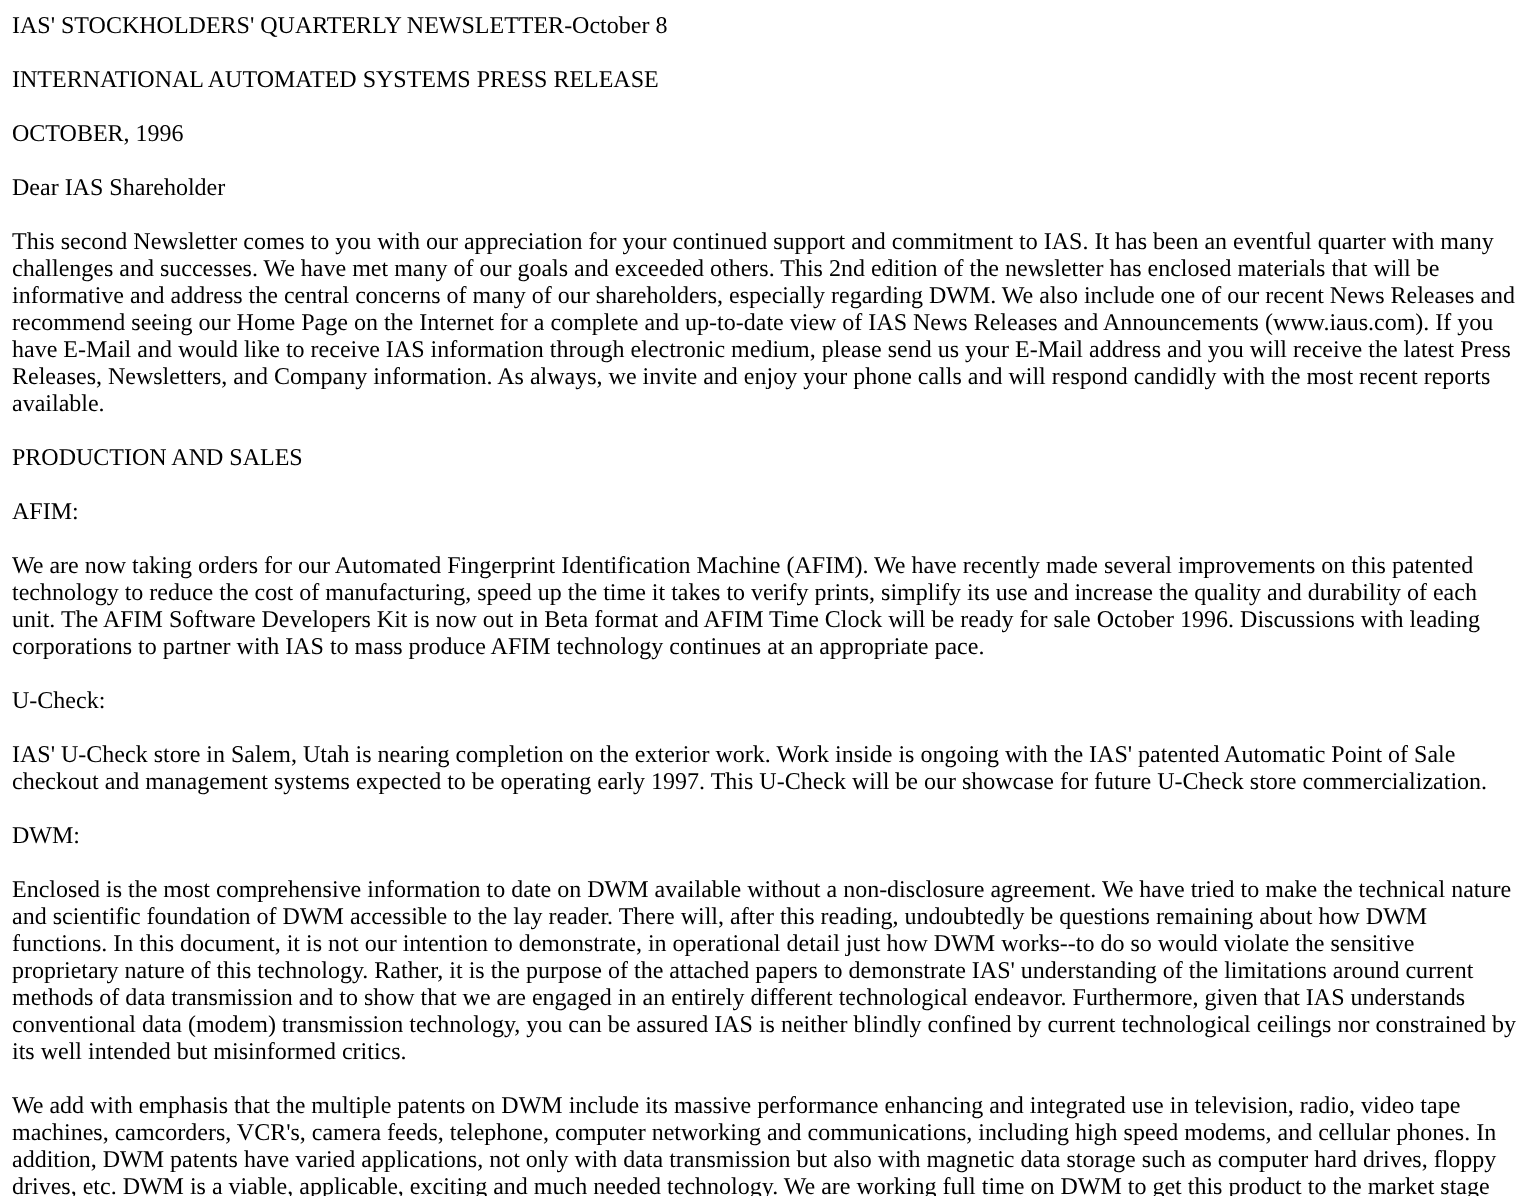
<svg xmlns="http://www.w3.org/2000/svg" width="1530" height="1196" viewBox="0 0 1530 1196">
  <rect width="100%" height="100%" fill="rgb(255,255,255)"/>
  <g font-family="Liberation Serif" font-size="24" fill="rgb(0,0,0)">
    <text x="12" y="33">IAS' STOCKHOLDERS' QUARTERLY NEWSLETTER-October 8</text>
    <text x="12" y="87">INTERNATIONAL AUTOMATED SYSTEMS PRESS RELEASE</text>
    <text x="12" y="141">OCTOBER, 1996</text>
    <text x="12" y="195">Dear IAS Shareholder</text>
    <text>
      <tspan x="12" y="249">This second Newsletter comes to you with our appreciation for your continued support and commitment to IAS. It has been an eventful quarter with many</tspan>
      <tspan x="12" y="276">challenges and successes. We have met many of our goals and exceeded others. This 2nd edition of the newsletter has enclosed materials that will be</tspan>
      <tspan x="12" y="303">informative and address the central concerns of many of our shareholders, especially regarding DWM. We also include one of our recent News Releases and</tspan>
      <tspan x="12" y="330">recommend seeing our Home Page on the Internet for a complete and up-to-date view of IAS News Releases and Announcements (www.iaus.com). If you</tspan>
      <tspan x="12" y="357">have E-Mail and would like to receive IAS information through electronic medium, please send us your E-Mail address and you will receive the latest Press</tspan>
      <tspan x="12" y="384">Releases, Newsletters, and Company information. As always, we invite and enjoy your phone calls and will respond candidly with the most recent reports</tspan>
      <tspan x="12" y="411">available.</tspan>
    </text>
    <text x="12" y="465">PRODUCTION AND SALES</text>
    <text x="12" y="519">AFIM:</text>
    <text>
      <tspan x="12" y="573">We are now taking orders for our Automated Fingerprint Identification Machine (AFIM). We have recently made several improvements on this patented</tspan>
      <tspan x="12" y="600">technology to reduce the cost of manufacturing, speed up the time it takes to verify prints, simplify its use and increase the quality and durability of each</tspan>
      <tspan x="12" y="627">unit. The AFIM Software Developers Kit is now out in Beta format and AFIM Time Clock will be ready for sale October 1996. Discussions with leading</tspan>
      <tspan x="12" y="654">corporations to partner with IAS to mass produce AFIM technology continues at an appropriate pace.</tspan>
    </text>
    <text x="12" y="708">U-Check:</text>
    <text>
      <tspan x="12" y="762">IAS' U-Check store in Salem, Utah is nearing completion on the exterior work. Work inside is ongoing with the IAS' patented Automatic Point of Sale</tspan>
      <tspan x="12" y="789">checkout and management systems expected to be operating early 1997. This U-Check will be our showcase for future U-Check store commercialization.</tspan>
    </text>
    <text x="12" y="843">DWM:</text>
    <text>
      <tspan x="12" y="897">Enclosed is the most comprehensive information to date on DWM available without a non-disclosure agreement. We have tried to make the technical nature</tspan>
      <tspan x="12" y="924">and scientific foundation of DWM accessible to the lay reader. There will, after this reading, undoubtedly be questions remaining about how DWM</tspan>
      <tspan x="12" y="951">functions. In this document, it is not our intention to demonstrate, in operational detail just how DWM works--to do so would violate the sensitive</tspan>
      <tspan x="12" y="978">proprietary nature of this technology. Rather, it is the purpose of the attached papers to demonstrate IAS' understanding of the limitations around current</tspan>
      <tspan x="12" y="1005">methods of data transmission and to show that we are engaged in an entirely different technological endeavor. Furthermore, given that IAS understands</tspan>
      <tspan x="12" y="1032">conventional data (modem) transmission technology, you can be assured IAS is neither blindly confined by current technological ceilings nor constrained by</tspan>
      <tspan x="12" y="1059">its well intended but misinformed critics.</tspan>
    </text>
    <text>
      <tspan x="12" y="1113">We add with emphasis that the multiple patents on DWM include its massive performance enhancing and integrated use in television, radio, video tape</tspan>
      <tspan x="12" y="1140">machines, camcorders, VCR's, camera feeds, telephone, computer networking and communications, including high speed modems, and cellular phones. In</tspan>
      <tspan x="12" y="1167">addition, DWM patents have varied applications, not only with data transmission but also with magnetic data storage such as computer hard drives, floppy</tspan>
      <tspan x="12" y="1194">drives, etc. DWM is a viable, applicable, exciting and much needed technology. We are working full time on DWM to get this product to the market stage</tspan>
    </text>
  </g>
</svg>
